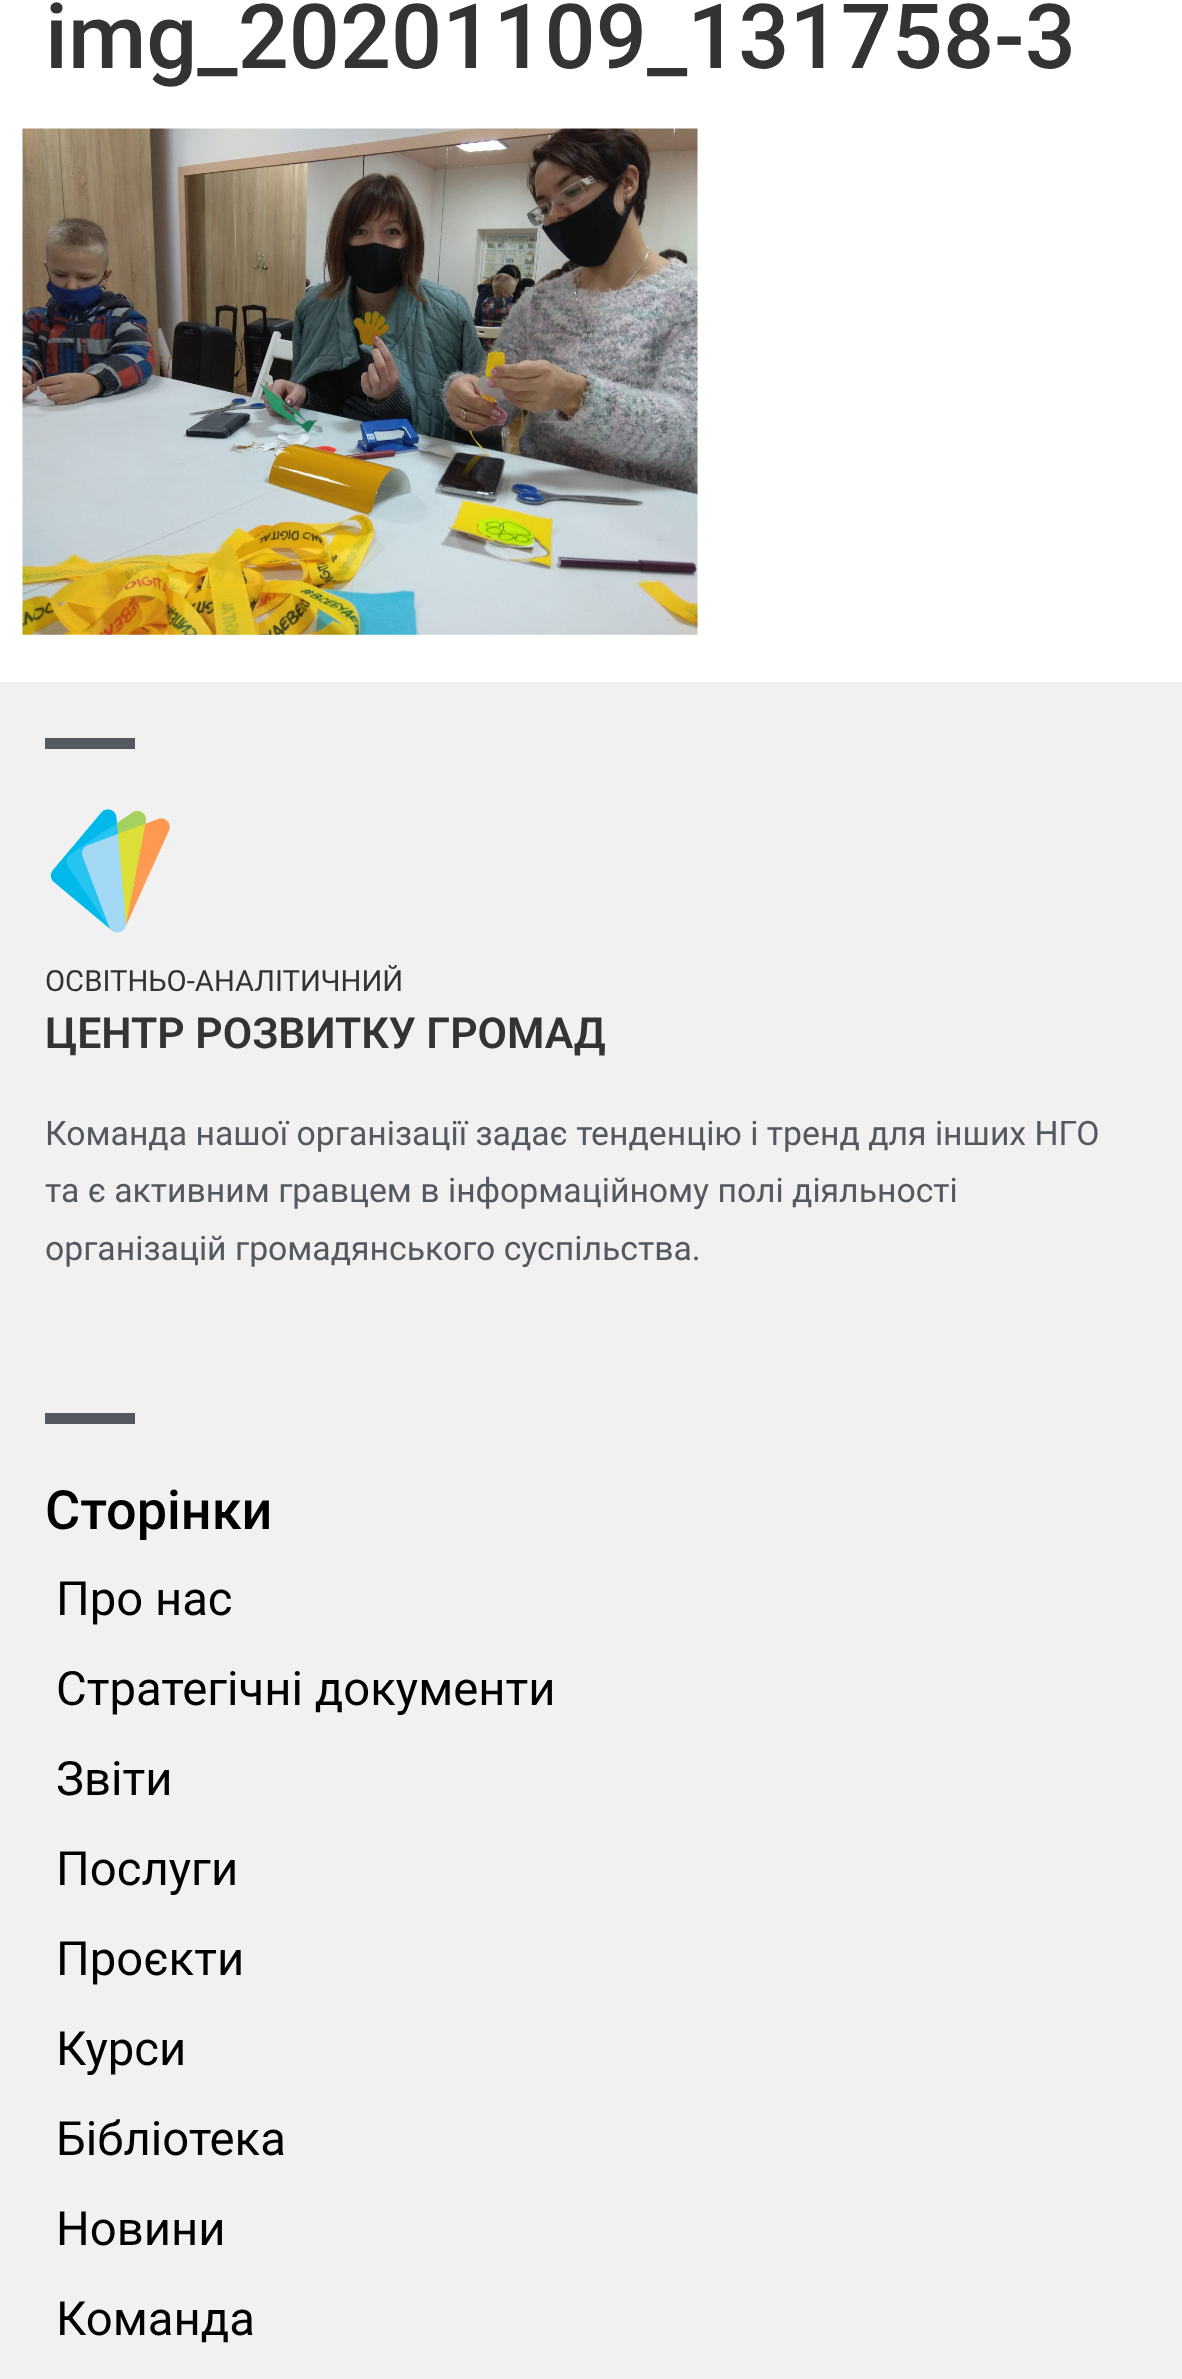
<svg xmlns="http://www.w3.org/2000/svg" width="1182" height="2379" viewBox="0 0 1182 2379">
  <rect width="100%" height="100%" fill="rgb(255,255,255)"/>
  <text x="45" y="68" font-family="Roboto" font-size="90" font-weight="500" fill="rgb(51,51,51)">img_20201109_131758-3</text>
  <image x="22" y="128" width="676" height="507" href="pic1.png"/>
  <rect x="0" y="682" width="1182" height="1697" fill="rgb(241,241,241)"/>
  <rect x="45" y="738" width="90" height="11" fill="rgb(84,89,95)"/>
  <image x="50" y="809" width="120" height="124" href="pic2.png"/>
  <text x="45" y="991" font-family="Roboto" font-size="29.25" fill="rgb(51,51,51)">ОСВІТНЬО-АНАЛІТИЧНИЙ</text>
  <text x="45" y="1048" font-family="Roboto" font-size="42.75" font-weight="600" fill="rgb(51,51,51)">ЦЕНТР РОЗВИТКУ ГРОМАД</text>
  <g font-family="Roboto" font-size="33.75" fill="rgb(84,89,95)">
    <text>
      <tspan x="45" y="1145">Команда нашої організації задає тенденцію і тренд для інших НГО</tspan>
      <tspan x="45" y="1202">та є активним гравцем в інформаційному полі діяльності</tspan>
      <tspan x="45" y="1260">організацій громадянського суспільства.</tspan>
    </text>
  </g>
  <rect x="45" y="1413" width="90" height="11" fill="rgb(84,89,95)"/>
  <text x="45" y="1529" font-family="Roboto" font-size="54" font-weight="500" fill="rgb(0,0,0)">Сторінки</text>
  <g font-family="Roboto" font-size="47.25" fill="rgb(0,0,0)">
    <text>
      <tspan x="56" y="1615">Про нас</tspan>
      <tspan x="56" y="1705">Стратегічні документи</tspan>
      <tspan x="56" y="1795">Звіти</tspan>
      <tspan x="56" y="1885">Послуги</tspan>
      <tspan x="56" y="1975">Проєкти</tspan>
      <tspan x="56" y="2065">Курси</tspan>
      <tspan x="56" y="2155">Бібліотека</tspan>
      <tspan x="56" y="2245">Новини</tspan>
      <tspan x="56" y="2335">Команда</tspan>
    </text>
  </g>
</svg>
